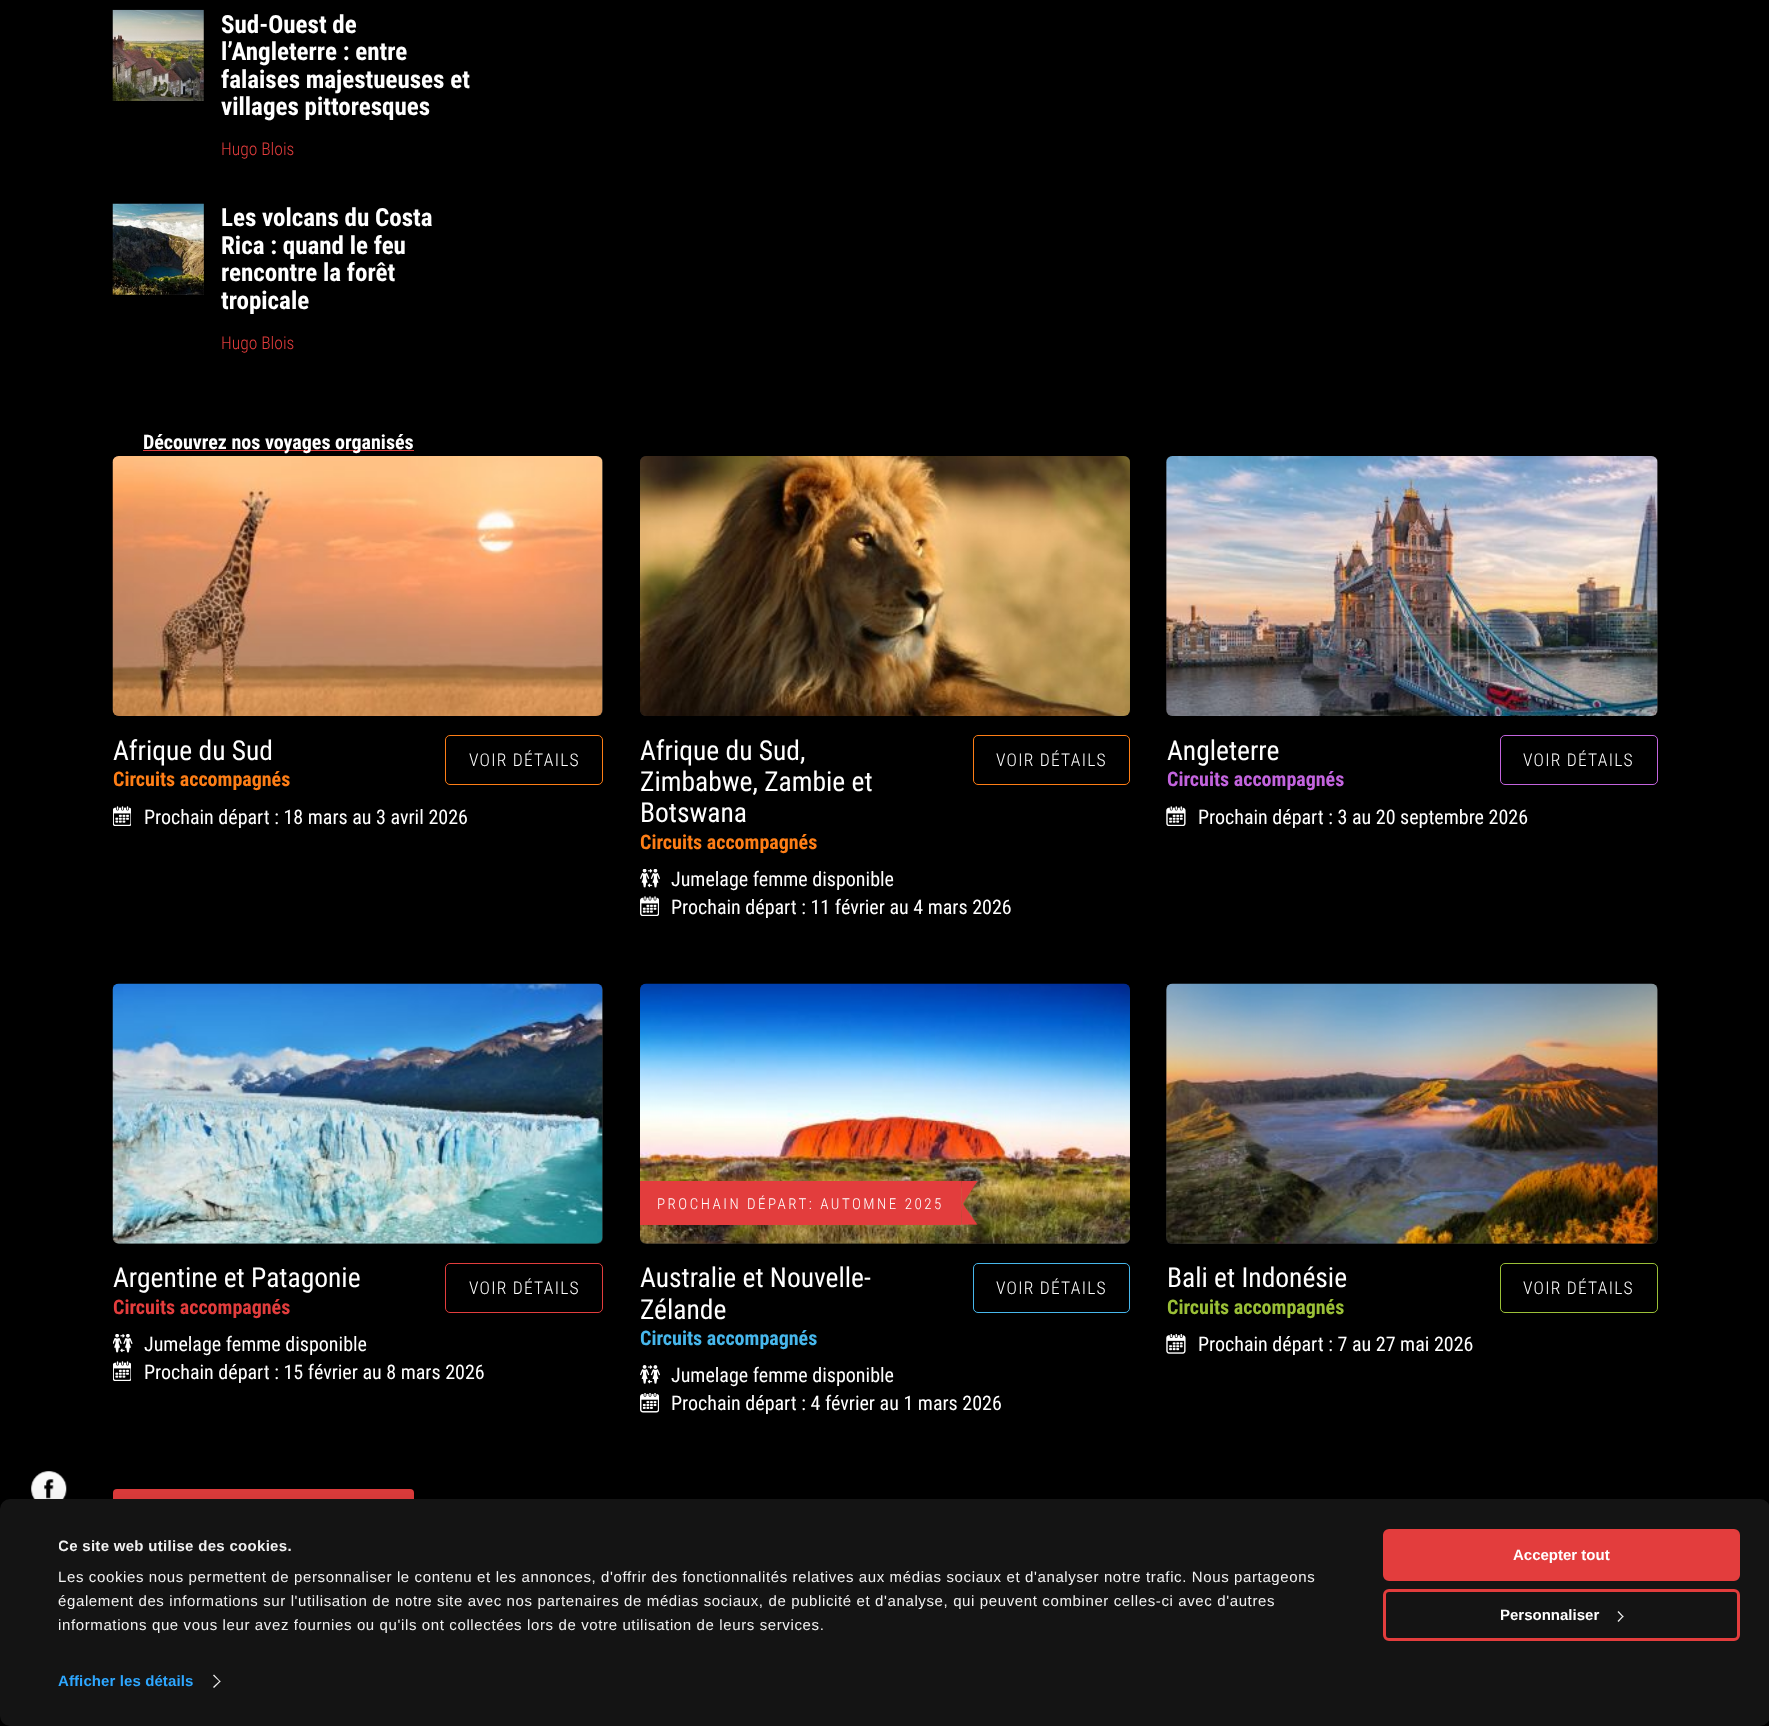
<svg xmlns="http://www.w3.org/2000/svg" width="1769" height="1726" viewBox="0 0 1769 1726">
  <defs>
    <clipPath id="clip1"><rect x="59" y="1535" width="1319" height="103"/></clipPath>
  </defs>
  <rect width="100%" height="100%" fill="rgb(0,0,0)"/>
  <image x="112" y="9" width="92" height="92" href="pic1.png"/>
  <g font-family="Roboto Condensed" font-size="25" font-weight="bold" fill="rgb(255,255,255)">
    <text>
      <tspan x="221" y="33">Sud-Ouest de</tspan>
      <tspan x="221" y="60">l’Angleterre : entre</tspan>
      <tspan x="221" y="88">falaises majestueuses et</tspan>
      <tspan x="221" y="115">villages pittoresques</tspan>
    </text>
  </g>
  <text x="221" y="155" font-family="Roboto Condensed" font-size="17.5" font-weight="300" fill="rgb(227,61,61)">Hugo Blois</text>
  <rect x="113" y="204" width="91" height="91" fill="rgb(41,39,37)"/>
  <image x="112" y="203" width="92" height="92" href="pic2.png"/>
  <g font-family="Roboto Condensed" font-size="25" font-weight="bold" fill="rgb(255,255,255)">
    <text>
      <tspan x="221" y="226">Les volcans du Costa</tspan>
      <tspan x="221" y="254">Rica : quand le feu</tspan>
      <tspan x="221" y="281">rencontre la forêt</tspan>
      <tspan x="221" y="309">tropicale</tspan>
    </text>
  </g>
  <text x="221" y="349" font-family="Roboto Condensed" font-size="17.5" font-weight="300" fill="rgb(227,61,61)">Hugo Blois</text>
  <rect x="143" y="450" width="271" height="1" fill="rgb(227,61,61)"/>
  <text x="143" y="449" font-family="Roboto Condensed" font-size="20" font-weight="bold" fill="rgb(255,255,255)">Découvrez nos voyages organisés</text>
  <rect x="113" y="456" width="490" height="260" rx="6" fill="rgb(34,34,34)"/>
  <image x="112" y="456" width="491" height="260" href="pic3.png"/>
  <text x="113" y="760" font-family="Roboto Condensed" font-size="27.5" fill="rgb(255,255,255)">Afrique du Sud</text>
  <text x="113" y="786" font-family="Roboto Condensed" font-size="20" font-weight="bold" fill="rgb(254,126,22)">Circuits accompagnés</text>
  <rect x="445.5" y="735.5" width="157" height="49" rx="4.5" fill="none" stroke="rgb(254,126,22)"/>
  <text x="469" y="766" font-family="Roboto Condensed" font-size="17.5" font-weight="300" letter-spacing="1.25" fill="rgb(255,255,255)">VOIR DÉTAILS</text>
  <image x="113" y="806" width="18" height="20" href="pic4.png"/>
  <text x="144" y="824" font-family="Roboto Condensed" font-size="20" fill="rgb(255,255,255)">Prochain départ : 18 mars au 3 avril 2026</text>
  <rect x="640" y="456" width="490" height="260" rx="6" fill="rgb(34,34,34)"/>
  <image x="640" y="456" width="490" height="260" href="pic5.png"/>
  <g font-family="Roboto Condensed" font-size="27.5" fill="rgb(255,255,255)">
    <text>
      <tspan x="640" y="760">Afrique du Sud,</tspan>
      <tspan x="640" y="791">Zimbabwe, Zambie et</tspan>
      <tspan x="640" y="822">Botswana</tspan>
    </text>
  </g>
  <text x="640" y="849" font-family="Roboto Condensed" font-size="20" font-weight="bold" fill="rgb(254,126,22)">Circuits accompagnés</text>
  <rect x="973.5" y="735.5" width="156" height="49" rx="4.5" fill="none" stroke="rgb(254,126,22)"/>
  <text x="996" y="766" font-family="Roboto Condensed" font-size="17.5" font-weight="300" letter-spacing="1.25" fill="rgb(255,255,255)">VOIR DÉTAILS</text>
  <image x="640" y="869" width="20" height="19" href="pic6.png"/>
  <text x="671" y="886" font-family="Roboto Condensed" font-size="20" fill="rgb(255,255,255)">Jumelage femme disponible</text>
  <image x="640" y="896" width="19" height="20" href="pic7.png"/>
  <text x="671" y="914" font-family="Roboto Condensed" font-size="20" fill="rgb(255,255,255)">Prochain départ : 11 février au 4 mars 2026</text>
  <rect x="1166" y="456" width="492" height="260" rx="6" fill="rgb(34,34,34)"/>
  <image x="1166" y="456" width="492" height="260" href="pic8.png"/>
  <text x="1167" y="760" font-family="Roboto Condensed" font-size="27.5" fill="rgb(255,255,255)">Angleterre</text>
  <text x="1167" y="786" font-family="Roboto Condensed" font-size="20" font-weight="bold" fill="rgb(195,100,222)">Circuits accompagnés</text>
  <rect x="1500.5" y="735.5" width="157" height="49" rx="4.5" fill="none" stroke="rgb(195,100,222)"/>
  <text x="1523" y="766" font-family="Roboto Condensed" font-size="17.5" font-weight="300" letter-spacing="1.25" fill="rgb(255,255,255)">VOIR DÉTAILS</text>
  <image x="1166" y="806" width="20" height="20" href="pic9.png"/>
  <text x="1198" y="824" font-family="Roboto Condensed" font-size="20" fill="rgb(255,255,255)">Prochain départ : 3 au 20 septembre 2026</text>
  <rect x="113" y="984" width="490" height="260" rx="6" fill="rgb(34,34,34)"/>
  <image x="112" y="983" width="491" height="261" href="pic10.png"/>
  <text x="113" y="1287" font-family="Roboto Condensed" font-size="27.5" fill="rgb(255,255,255)">Argentine et Patagonie</text>
  <text x="113" y="1314" font-family="Roboto Condensed" font-size="20" font-weight="bold" fill="rgb(227,61,61)">Circuits accompagnés</text>
  <rect x="445.5" y="1263.5" width="157" height="49" rx="4.5" fill="none" stroke="rgb(227,61,61)"/>
  <text x="469" y="1294" font-family="Roboto Condensed" font-size="17.5" font-weight="300" letter-spacing="1.25" fill="rgb(255,255,255)">VOIR DÉTAILS</text>
  <image x="113" y="1334" width="20" height="19" href="pic11.png"/>
  <text x="144" y="1351" font-family="Roboto Condensed" font-size="20" fill="rgb(255,255,255)">Jumelage femme disponible</text>
  <image x="113" y="1361" width="18" height="20" href="pic4.png"/>
  <text x="144" y="1379" font-family="Roboto Condensed" font-size="20" fill="rgb(255,255,255)">Prochain départ : 15 février au 8 mars 2026</text>
  <rect x="640" y="984" width="490" height="260" rx="6" fill="rgb(34,34,34)"/>
  <image x="640" y="983" width="490" height="261" href="pic12.png"/>
  <rect x="640" y="1181" width="321" height="44" fill="rgb(227,61,61)"/>
  <text x="657" y="1209" font-family="Roboto Condensed" font-size="15" font-weight="300" letter-spacing="2.5" fill="rgb(255,255,255)">PROCHAIN DÉPART: AUTOMNE 2025</text>
  <image x="961" y="1181" width="17" height="44" href="pic13.png"/>
  <g font-family="Roboto Condensed" font-size="27.5" fill="rgb(255,255,255)">
    <text>
      <tspan x="640" y="1287">Australie et Nouvelle-</tspan>
      <tspan x="640" y="1319">Zélande</tspan>
    </text>
  </g>
  <text x="640" y="1345" font-family="Roboto Condensed" font-size="20" font-weight="bold" fill="rgb(71,183,236)">Circuits accompagnés</text>
  <rect x="973.5" y="1263.5" width="156" height="49" rx="4.5" fill="none" stroke="rgb(71,183,236)"/>
  <text x="996" y="1294" font-family="Roboto Condensed" font-size="17.5" font-weight="300" letter-spacing="1.25" fill="rgb(255,255,255)">VOIR DÉTAILS</text>
  <image x="640" y="1365" width="20" height="19" href="pic14.png"/>
  <text x="671" y="1382" font-family="Roboto Condensed" font-size="20" fill="rgb(255,255,255)">Jumelage femme disponible</text>
  <image x="640" y="1393" width="19" height="20" href="pic15.png"/>
  <text x="671" y="1410" font-family="Roboto Condensed" font-size="20" fill="rgb(255,255,255)">Prochain départ : 4 février au 1 mars 2026</text>
  <rect x="1166" y="984" width="492" height="260" rx="6" fill="rgb(34,34,34)"/>
  <image x="1166" y="983" width="492" height="261" href="pic16.png"/>
  <text x="1167" y="1287" font-family="Roboto Condensed" font-size="27.5" fill="rgb(255,255,255)">Bali et Indonésie</text>
  <text x="1167" y="1314" font-family="Roboto Condensed" font-size="20" font-weight="bold" fill="rgb(155,192,55)">Circuits accompagnés</text>
  <rect x="1500.5" y="1263.5" width="157" height="49" rx="4.5" fill="none" stroke="rgb(155,192,55)"/>
  <text x="1523" y="1294" font-family="Roboto Condensed" font-size="17.5" font-weight="300" letter-spacing="1.25" fill="rgb(255,255,255)">VOIR DÉTAILS</text>
  <image x="1166" y="1334" width="20" height="20" href="pic17.png"/>
  <text x="1198" y="1351" font-family="Roboto Condensed" font-size="20" fill="rgb(255,255,255)">Prochain départ : 7 au 27 mai 2026</text>
  <rect x="113" y="1489" width="301" height="50" rx="4" fill="rgb(227,61,61)"/>
  <image x="31" y="1471" width="36" height="28" href="pic18.png"/>
  <rect x="0" y="1536" width="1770" height="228" rx="10" fill="rgba(0,0,0,0.3)" filter="blur(44px)"/>
  <rect x="0" y="1499" width="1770" height="227" rx="10" fill="rgb(20,20,20)"/>
  <g clip-path="url(#clip1)">
    <text x="58" y="1551" font-family="Liberation Sans" font-size="15" font-weight="bold" letter-spacing="0.3" fill="rgb(242,242,242)">Ce site web utilise des cookies.</text>
  </g>
  <g font-family="Liberation Sans" font-size="15" letter-spacing="0.62" fill="rgb(242,242,242)">
    <text>
      <tspan x="58" y="1582">Les cookies nous permettent de personnaliser le contenu et les annonces, d'offrir des fonctionnalités relatives aux médias sociaux et d'analyser notre trafic. Nous partageons</tspan>
      <tspan x="58" y="1606">également des informations sur l'utilisation de notre site avec nos partenaires de médias sociaux, de publicité et d'analyse, qui peuvent combiner celles-ci avec d'autres</tspan>
      <tspan x="58" y="1630">informations que vous leur avez fournies ou qu'ils ont collectées lors de votre utilisation de leurs services.</tspan>
    </text>
  </g>
  <text x="58" y="1686" font-family="Liberation Sans" font-size="15" font-weight="bold" letter-spacing="0.1" fill="rgb(46,167,255)">Afficher les détails</text>
  <path d="M214 1674.5L220.5 1681.5L220 1682L213 1675.5Z" fill="rgb(242,242,242)"/>
  <path d="M220 1680.5L220.5 1681.5L214 1688L213 1687Z" fill="rgb(242,242,242)"/>
  <rect x="1384.5" y="1530.5" width="354" height="49" rx="4.5" fill="rgb(227,61,61)" stroke="rgb(227,61,61)" stroke-width="3"/>
  <text x="1513" y="1560" font-family="Liberation Sans" font-size="15" font-weight="bold" fill="rgb(255,255,255)">Accepter tout</text>
  <rect x="1384.5" y="1590.5" width="354" height="49" rx="4.5" fill="none" stroke="rgb(227,61,61)" stroke-width="3"/>
  <text x="1500" y="1620" font-family="Liberation Sans" font-size="15" font-weight="bold" fill="rgb(255,255,255)">Personnaliser</text>
  <path d="M1618.5 1611L1623.5 1616.5L1623 1617.5L1617.5 1612Z" fill="rgb(242,242,242)"/>
  <path d="M1623 1615.5L1623.5 1616.5L1618.5 1622L1617.5 1621Z" fill="rgb(242,242,242)"/>
</svg>
